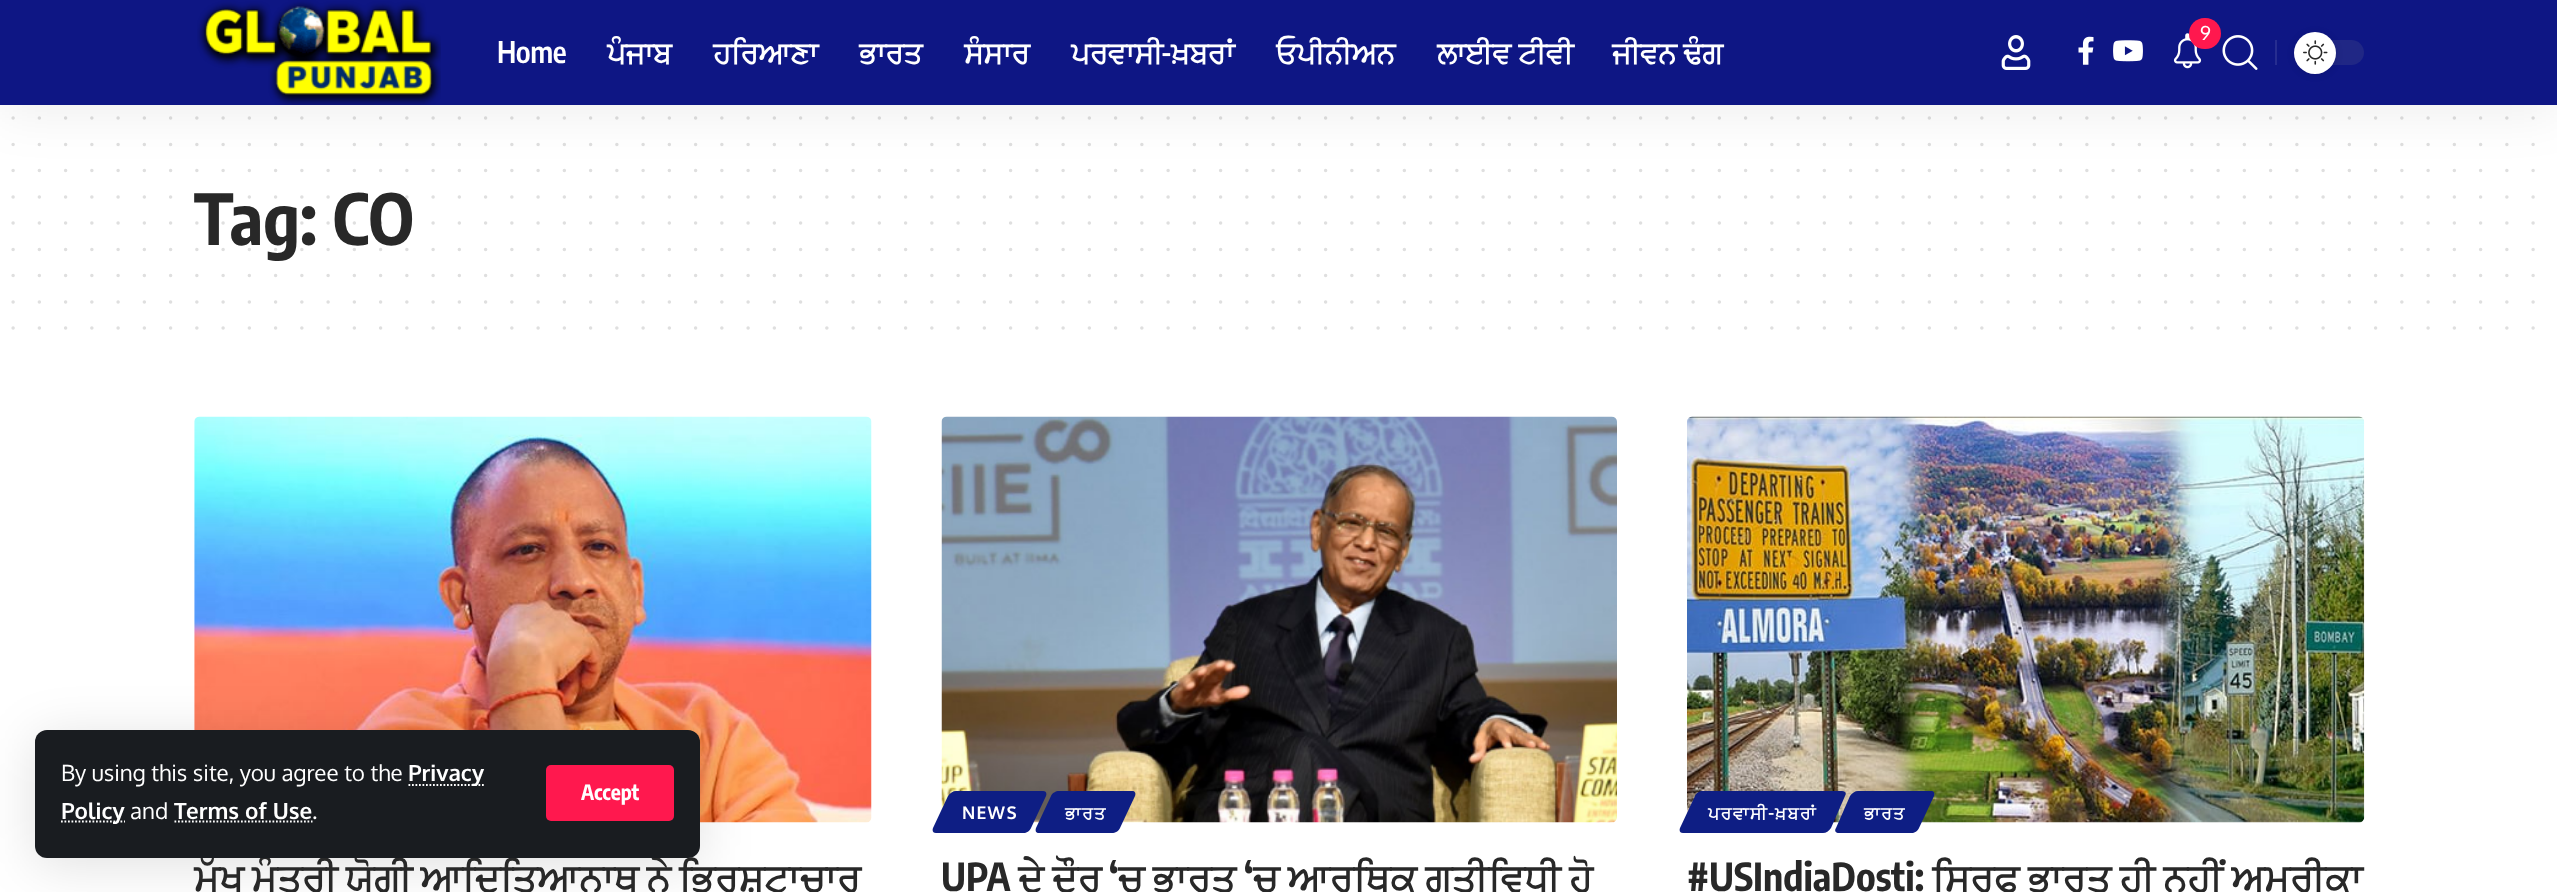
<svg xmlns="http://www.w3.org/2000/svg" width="2557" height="892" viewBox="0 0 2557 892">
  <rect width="100%" height="100%" fill="rgb(255,255,255)"/>
  <path d="M13.1 118.1H2533.5" fill="none" stroke="rgb(223,223,223)" stroke-width="3.5" stroke-linecap="round" stroke-dasharray="0 26.25"/>
  <path d="M13.1 144.4H2533.5" fill="none" stroke="rgb(223,223,223)" stroke-width="3.5" stroke-linecap="round" stroke-dasharray="0 26.25"/>
  <path d="M13.1 170.6H2533.5" fill="none" stroke="rgb(223,223,223)" stroke-width="3.5" stroke-linecap="round" stroke-dasharray="0 26.25"/>
  <rect x="0" y="7" width="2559" height="105" fill="rgba(0,0,0,0.07)" filter="blur(26px)"/>
  <rect x="0" y="0" width="2557" height="105" fill="rgb(14,22,132)"/>
  <image x="2173" y="33" width="29" height="36" href="pic1.png"/>
  <rect x="2189" y="18" width="32" height="31" rx="15.5" fill="rgb(255,24,78)"/>
  <text x="2200" y="40" font-family="Oxygen" font-size="19" fill="rgb(255,255,255)">9</text>
  <rect x="2275" y="40" width="2" height="25" fill="rgb(38,45,144)"/>
  <rect x="2294" y="40" width="70" height="25" rx="12.5" fill="rgb(32,39,133)"/>
  <rect x="2294" y="33" width="42" height="42" rx="21" fill="rgba(0,0,0,0.12)" filter="blur(3.5px)"/>
  <circle cx="2315" cy="53" r="21" fill="rgb(255,255,255)"/>
  <image x="2303" y="40" width="25" height="25" href="pic2.png"/>
  <image x="2001" y="35" width="30" height="35" href="pic3.png"/>
  <image x="2078" y="36" width="16" height="29" href="pic4.png"/>
  <image x="2113" y="40" width="30" height="22" href="pic5.png"/>
  <image x="2222" y="35" width="36" height="35" href="pic6.png"/>
  <image x="197" y="0" width="244" height="105" href="pic7.png"/>
  <text x="497" y="63" font-family="Encode Sans Condensed" font-size="29.75" font-weight="600" letter-spacing="-0.5" fill="rgb(255,255,255)">Home</text>
  <g font-family="FreeSans" font-size="29.75" font-weight="bold" letter-spacing="-0.5" fill="rgb(255,255,255)">
    <text x="607" y="63">ਪੰਜਾਬ</text>
    <text x="713" y="63">ਹਰਿਆਣਾ</text>
    <text x="859" y="63">ਭਾਰਤ</text>
    <text x="964" y="63">ਸੰਸਾਰ</text>
    <text x="1071" y="63">ਪਰਵਾਸੀ</text>
  </g>
  <text x="1161" y="63" font-family="Encode Sans Condensed" font-size="29.75" font-weight="600" letter-spacing="-0.5" fill="rgb(255,255,255)">-</text>
  <g font-family="FreeSans" font-size="29.75" font-weight="bold" letter-spacing="-0.5" fill="rgb(255,255,255)">
    <text x="1171" y="63">ਖ਼ਬਰਾਂ</text>
    <text x="1276" y="63">ਓਪੀਨੀਅਨ</text>
    <text x="1437" y="63" word-spacing="1">ਲਾਈਵ ਟੀਵੀ</text>
    <text x="1612" y="63">ਜੀਵਨ ਢੰਗ</text>
  </g>
  <image x="194" y="416" width="678" height="407" href="pic8.png"/>
  <rect x="35" y="737" width="665" height="128" rx="12" fill="rgba(0,0,0,0.12)" filter="blur(26px)"/>
  <text x="194" y="891" word-spacing="-1.5" font-family="FreeSans" font-size="38.5" font-weight="bold" fill="rgb(40,40,40)">ਮੁੱਖ ਮੰਤਰੀ ਯੋਗੀ ਆਦਿਤਿਆਨਾਥ ਨੇ ਭ੍ਰਿਸ਼ਟਾਚਾਰ</text>
  <rect x="35" y="730" width="665" height="128" rx="12" fill="rgb(25,28,32)"/>
  <text x="61" y="781" font-family="Oxygen" font-size="22.4" fill="rgb(255,255,255)">By using this site, you agree to the</text>
  <path d="M408.5 785H484.5" fill="none" stroke="rgb(255,255,255)" stroke-width="1.8" stroke-dasharray="1.75 1.75"/>
  <text x="408" y="781" font-family="Oxygen" font-size="22.4" font-weight="bold" fill="rgb(255,255,255)">Privacy</text>
  <path d="M61 821.5H125" fill="none" stroke="rgb(255,255,255)" stroke-width="1.8" stroke-dasharray="1.75 1.75"/>
  <text x="61" y="819" font-family="Oxygen" font-size="22.4" font-weight="bold" fill="rgb(255,255,255)">Policy</text>
  <text x="130" y="819" font-family="Oxygen" font-size="22.4" fill="rgb(255,255,255)">and</text>
  <text x="174" y="819" font-family="Oxygen" font-size="22.4" font-weight="bold" fill="rgb(255,255,255)">Terms of Use</text>
  <path d="M174.5 821.5H312.5" fill="none" stroke="rgb(255,255,255)" stroke-width="1.8" stroke-dasharray="1.75 1.75"/>
  <text x="312" y="819" font-family="Oxygen" font-size="22.4" fill="rgb(255,255,255)">.</text>
  <rect x="546" y="765" width="128" height="56" rx="5" fill="rgb(255,24,78)"/>
  <text x="581" y="800" font-family="Encode Sans Condensed" font-size="21" font-weight="bold" fill="rgb(255,255,255)">Accept</text>
  <text x="194" y="245" font-family="Encode Sans Condensed" font-size="70" font-weight="bold" fill="rgb(40,40,40)">Tag: CO</text>
  <path d="M13.1 196.9H2533.5" fill="none" stroke="rgba(40,40,40,0.15)" stroke-width="3.5" stroke-linecap="round" stroke-dasharray="0 26.25"/>
  <path d="M13.1 223.1H2533.5" fill="none" stroke="rgba(40,40,40,0.15)" stroke-width="3.5" stroke-linecap="round" stroke-dasharray="0 26.25"/>
  <path d="M13.1 249.4H2533.5" fill="none" stroke="rgb(223,223,223)" stroke-width="3.5" stroke-linecap="round" stroke-dasharray="0 26.25"/>
  <path d="M13.1 275.6H2533.5" fill="none" stroke="rgb(223,223,223)" stroke-width="3.5" stroke-linecap="round" stroke-dasharray="0 26.25"/>
  <path d="M13.1 301.9H2533.5" fill="none" stroke="rgb(223,223,223)" stroke-width="3.5" stroke-linecap="round" stroke-dasharray="0 26.25"/>
  <path d="M13.1 328.1H2533.5" fill="none" stroke="rgb(223,223,223)" stroke-width="3.5" stroke-linecap="round" stroke-dasharray="0 26.25"/>
  <image x="941" y="416" width="676" height="407" href="pic9.png"/>
  <path d="M956 791H1043C1046 791 1047 793 1046 796L1031 828C1030 831 1026 833 1024 833H936C933 833 932 831 933 828L948 796C950 793 953 791 956 791Z" fill="rgb(14,30,132)"/>
  <text x="962" y="819" font-family="Oxygen" font-size="17.5" font-weight="bold" letter-spacing="1.25" fill="rgb(255,255,255)">NEWS</text>
  <path d="M1059 791H1132C1135 791 1136 793 1135 796L1120 828C1119 831 1115 833 1112 833H1039C1036 833 1035 831 1036 828L1051 796C1052 793 1056 791 1059 791Z" fill="rgb(14,30,132)"/>
  <text x="1065" y="819" font-family="FreeSans" font-size="17.5" font-weight="bold" letter-spacing="1.25" fill="rgb(255,255,255)">ਭਾਰਤ</text>
  <text x="941" y="891" font-family="Encode Sans Condensed" font-size="38.5" font-weight="bold" fill="rgb(40,40,40)">UPA</text>
  <text x="1018" y="891" word-spacing="-1" font-family="FreeSans" font-size="38.5" font-weight="bold" fill="rgb(40,40,40)">ਦੇ ਦੌਰ</text>
  <text x="1109" y="891" font-family="Encode Sans Condensed" font-size="38.5" font-weight="bold" fill="rgb(40,40,40)">‘</text>
  <text x="1118" y="891" word-spacing="-1" font-family="FreeSans" font-size="38.5" font-weight="bold" fill="rgb(40,40,40)">ਚ ਭਾਰਤ</text>
  <text x="1244" y="891" font-family="Encode Sans Condensed" font-size="38.5" font-weight="bold" fill="rgb(40,40,40)">‘</text>
  <text x="1253" y="891" word-spacing="-1" font-family="FreeSans" font-size="38.5" font-weight="bold" fill="rgb(40,40,40)">ਚ ਆਰਥਿਕ ਗਤੀਵਿਧੀ ਹੋ</text>
  <image x="1687" y="416" width="678" height="407" href="pic10.png"/>
  <path d="M1702 791H1842C1845 791 1847 793 1845 796L1831 828C1829 831 1826 833 1823 833H1683C1680 833 1679 831 1680 828L1695 796C1696 793 1700 791 1702 791Z" fill="rgb(14,30,132)"/>
  <text x="1708" y="819" font-family="FreeSans" font-size="17.5" font-weight="bold" letter-spacing="1.25" fill="rgb(255,255,255)">ਪਰਵਾਸੀ-ਖ਼ਬਰਾਂ</text>
  <path d="M1858 791H1931C1934 791 1935 793 1934 796L1919 828C1918 831 1914 833 1912 833H1839C1836 833 1834 831 1836 828L1850 796C1852 793 1855 791 1858 791Z" fill="rgb(14,30,132)"/>
  <text x="1864" y="819" font-family="FreeSans" font-size="17.5" font-weight="bold" letter-spacing="1.25" fill="rgb(255,255,255)">ਭਾਰਤ</text>
  <text x="1687" y="891" font-family="Encode Sans Condensed" font-size="38.5" font-weight="bold" fill="rgb(40,40,40)">#USIndiaDosti:</text>
  <text x="1932" y="891" word-spacing="-1" font-family="FreeSans" font-size="38.5" font-weight="bold" fill="rgb(40,40,40)">ਸਿਰਫ ਭਾਰਤ ਹੀ ਨਹੀਂ ਅਮਰੀਕਾ</text>
</svg>
